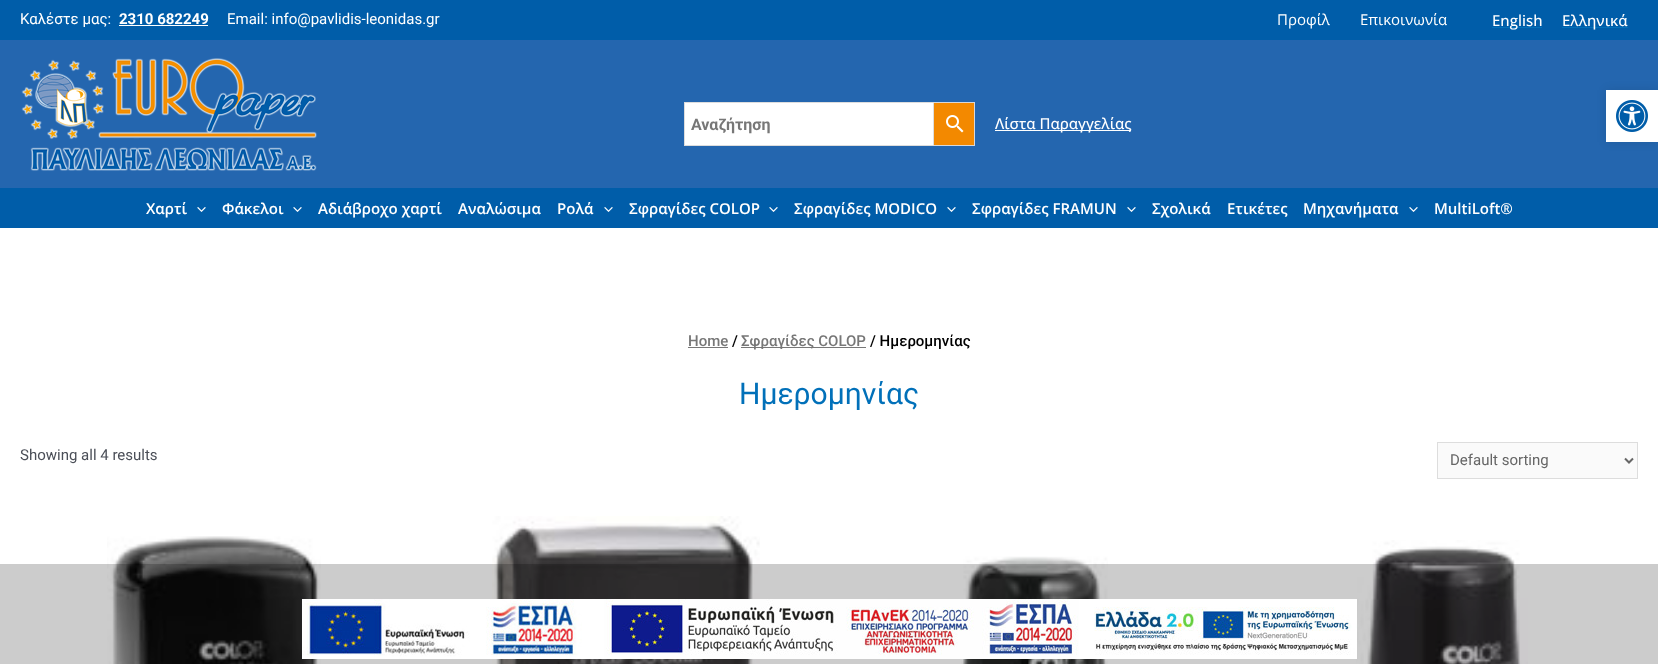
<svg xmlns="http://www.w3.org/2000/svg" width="1658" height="664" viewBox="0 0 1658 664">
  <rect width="100%" height="100%" fill="rgb(255,255,255)"/>
  <rect x="0" y="0" width="1658" height="40" fill="rgb(0,93,169)"/>
  <text x="20" y="24" font-family="Roboto" font-size="15" fill="rgb(255,255,255)">Καλέστε μας:</text>
  <text x="119" y="24" font-family="Roboto" font-size="15" font-weight="bold" fill="rgb(255,255,255)">2310 682249</text>
  <rect x="119" y="25" width="89" height="1" fill="rgb(255,255,255)"/>
  <text x="227" y="24" font-family="Roboto" font-size="15" fill="rgb(255,255,255)">Email: info@pavlidis-leonidas.gr</text>
  <g font-family="Open Sans" font-size="15" fill="rgb(255,255,255)">
    <text x="1277" y="25">Προφίλ</text>
    <text x="1360" y="25">Επικοινωνία</text>
  </g>
  <rect x="1492" y="27" width="50" height="1" fill="rgb(1,112,185)"/>
  <text x="1492" y="26" font-family="Open Sans" font-size="15" font-weight="500" fill="rgb(255,255,255)">English</text>
  <rect x="1562" y="27" width="66" height="1" fill="rgb(1,112,185)"/>
  <text x="1562" y="26" font-family="Open Sans" font-size="15" font-weight="500" fill="rgb(255,255,255)">Ελληνικά</text>
  <rect x="0" y="40" width="1658" height="148" fill="rgb(36,102,175)"/>
  <image x="21" y="58" width="296" height="113" href="pic1.png"/>
  <rect x="933.5" y="102.5" width="41" height="43" fill="rgb(243,137,0)" stroke="rgb(216,216,216)"/>
  <rect x="684.5" y="102.5" width="249" height="43" fill="rgb(255,255,255)" stroke="rgb(221,221,221)"/>
  <text x="691" y="130" font-family="Roboto" font-size="16" font-weight="bold" fill="rgb(119,119,119)">Αναζήτηση</text>
  <image x="946" y="115" width="18" height="18" href="pic2.png"/>
  <rect x="995" y="130" width="136" height="1" fill="rgb(255,255,255)"/>
  <text x="995" y="129" font-family="Open Sans" font-size="15" font-weight="500" fill="rgb(255,255,255)">Λίστα Παραγγελίας</text>
  <rect x="0" y="188" width="1658" height="40" fill="rgb(0,93,169)"/>
  <text x="146" y="214" font-family="Open Sans" font-size="15" font-weight="600" fill="rgb(255,255,255)">Χαρτί</text>
  <image x="197" y="207" width="9" height="5" href="pic3.png"/>
  <text x="222" y="214" font-family="Open Sans" font-size="15" font-weight="600" fill="rgb(255,255,255)">Φάκελοι</text>
  <image x="293" y="207" width="9" height="5" href="pic3.png"/>
  <g font-family="Open Sans" font-size="15" font-weight="600" fill="rgb(255,255,255)">
    <text x="318" y="214">Αδιάβροχο χαρτί</text>
    <text x="458" y="214">Αναλώσιμα</text>
    <text x="557" y="214">Ρολά</text>
  </g>
  <image x="604" y="207" width="9" height="5" href="pic3.png"/>
  <text x="629" y="214" font-family="Open Sans" font-size="15" font-weight="600" fill="rgb(255,255,255)">Σφραγίδες COLOP</text>
  <image x="769" y="207" width="9" height="5" href="pic3.png"/>
  <text x="794" y="214" font-family="Open Sans" font-size="15" font-weight="600" fill="rgb(255,255,255)">Σφραγίδες MODICO</text>
  <image x="947" y="207" width="9" height="5" href="pic3.png"/>
  <text x="972" y="214" font-family="Open Sans" font-size="15" font-weight="600" fill="rgb(255,255,255)">Σφραγίδες FRAMUN</text>
  <image x="1127" y="207" width="9" height="5" href="pic3.png"/>
  <g font-family="Open Sans" font-size="15" font-weight="600" fill="rgb(255,255,255)">
    <text x="1152" y="214">Σχολικά</text>
    <text x="1227" y="214">Ετικέτες</text>
    <text x="1303" y="214">Μηχανήματα</text>
  </g>
  <image x="1409" y="207" width="9" height="5" href="pic3.png"/>
  <text x="1434" y="214" font-family="Open Sans" font-size="15" font-weight="600" fill="rgb(255,255,255)">MultiLoft®</text>
  <text x="688" y="346" font-family="Roboto" font-size="15" font-weight="500" fill="rgb(119,119,119)">Home</text>
  <rect x="688" y="347" width="40" height="1" fill="rgb(119,119,119)"/>
  <text x="732" y="346" font-family="Roboto" font-size="15" font-weight="500" fill="rgb(0,0,0)">/</text>
  <rect x="741" y="347" width="125" height="1" fill="rgb(119,119,119)"/>
  <text x="741" y="346" font-family="Roboto" font-size="15" font-weight="500" fill="rgb(119,119,119)">Σφραγίδες COLOP</text>
  <text x="870" y="346" font-family="Roboto" font-size="15" font-weight="500" fill="rgb(0,0,0)">/ Ημερομηνίας</text>
  <text x="739" y="404" font-family="Roboto" font-size="30" fill="rgb(1,112,185)">Ημερομηνίας</text>
  <text x="20" y="460" font-family="Roboto" font-size="15" fill="rgb(75,79,88)">Showing all 4 results</text>
  <rect x="1437.5" y="442.5" width="200" height="36" fill="rgb(250,250,250)" stroke="rgb(221,221,221)"/>
  <path d="M1625 458.5L1629 462.5L1633 458.5" fill="none" stroke="rgb(102,102,102)" stroke-width="2"/>
  <text x="1450" y="465" font-family="Roboto" font-size="15" fill="rgb(102,102,102)">Default sorting</text>
  <image x="107" y="536" width="214" height="128" href="pic4.png"/>
  <image x="492" y="516" width="268" height="148" href="pic5.png"/>
  <image x="961" y="556" width="147" height="108" href="pic6.png"/>
  <image x="1356" y="540" width="172" height="124" href="pic7.png"/>
  <rect x="0" y="564" width="1658" height="100" fill="rgba(0,0,0,0.2)"/>
  <image x="302" y="599" width="1055" height="60" href="pic8.png"/>
  <rect x="1606" y="90" width="52" height="52" fill="rgba(0,0,0,0.1)" filter="blur(5px)"/>
  <rect x="1606" y="90" width="52" height="52" fill="rgb(255,255,255)"/>
  <image x="1616" y="100" width="32" height="32" href="pic9.png"/>
</svg>
